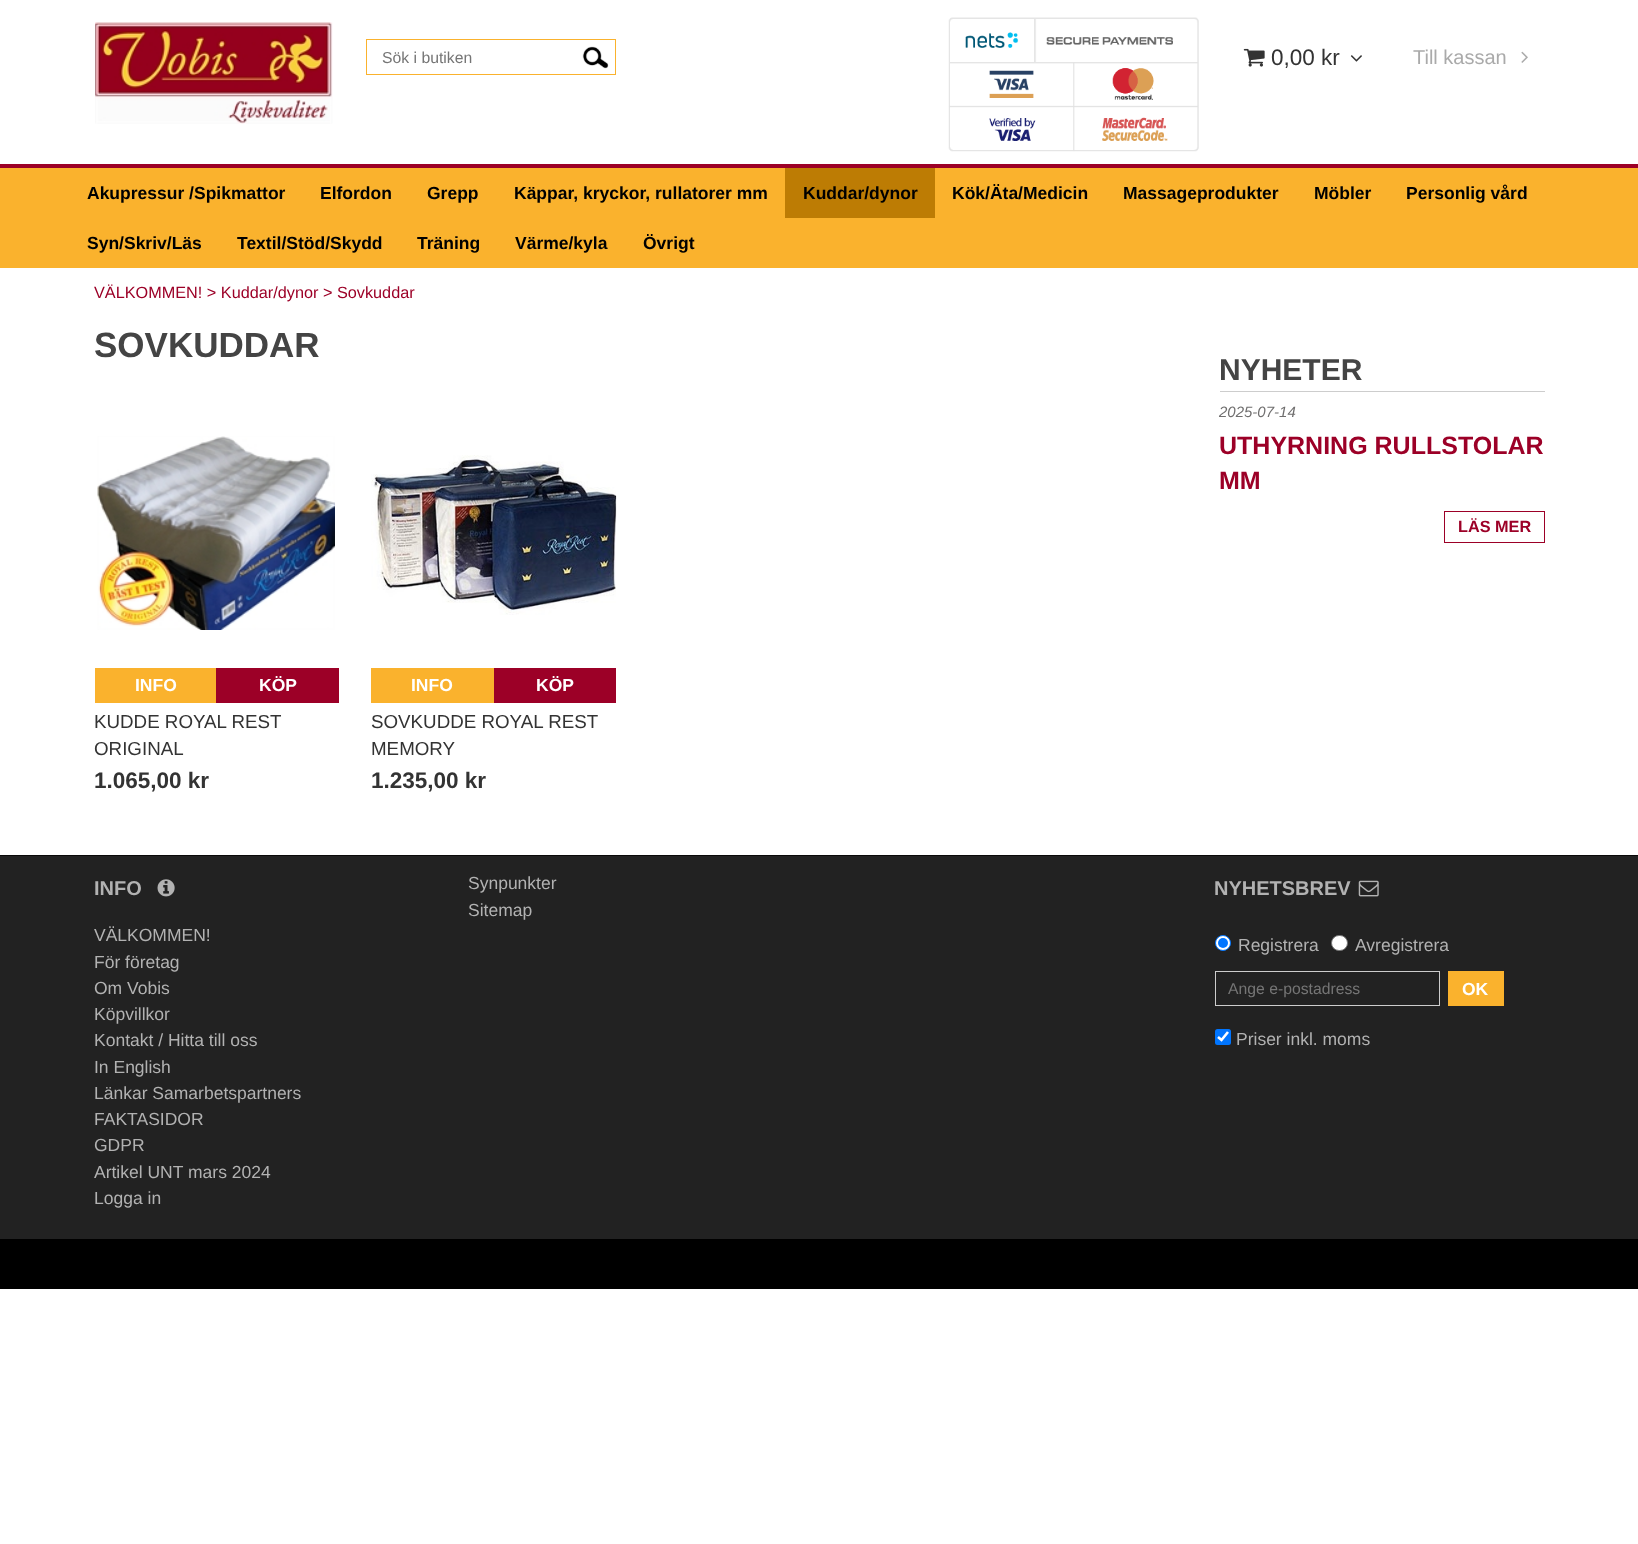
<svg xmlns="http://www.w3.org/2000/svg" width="1638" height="1544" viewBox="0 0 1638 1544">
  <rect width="100%" height="100%" fill="rgb(255,255,255)"/>
  <image x="95" y="22" width="238" height="102" href="pic1.png"/>
  <rect x="366.5" y="39.5" width="249" height="35" fill="none" stroke="rgb(250,178,45)"/>
  <text x="382" y="63" font-family="Liberation Sans" font-size="15.75" fill="rgb(117,117,117)">Sök i butiken</text>
  <image x="582" y="46" width="27" height="23" href="pic2.png"/>
  <image x="948" y="17" width="251" height="135" href="pic3.png"/>
  <image x="1243" y="48" width="22" height="19" href="pic4.png"/>
  <text x="1271" y="65" font-family="Liberation Sans" font-size="22.5" fill="rgb(51,51,51)">0,00 kr</text>
  <image x="1350" y="55" width="12" height="7" href="pic5.png"/>
  <text x="1413" y="64" font-family="Liberation Sans" font-size="20" fill="rgb(170,170,170)">Till kassan</text>
  <image x="1521" y="51" width="7" height="12" href="pic6.png"/>
  <rect x="0" y="168" width="1638" height="100" fill="rgb(250,178,45)"/>
  <rect x="0" y="164" width="1638" height="4" fill="rgb(156,0,39)"/>
  <g font-family="Liberation Sans" font-size="17.5" font-weight="bold" fill="rgb(0,0,0)">
    <text x="87" y="199">Akupressur /Spikmattor</text>
    <text x="320" y="199">Elfordon</text>
    <text x="427" y="199">Grepp</text>
    <text x="514" y="199">Käppar, kryckor, rullatorer mm</text>
  </g>
  <rect x="785" y="168" width="150" height="50" fill="rgb(189,124,4)"/>
  <g font-family="Liberation Sans" font-size="17.5" font-weight="bold" fill="rgb(0,0,0)">
    <text x="803" y="199">Kuddar/dynor</text>
    <text x="952" y="199">Kök/Äta/Medicin</text>
    <text x="1123" y="199">Massageprodukter</text>
    <text x="1314" y="199">Möbler</text>
    <text x="1406" y="199">Personlig vård</text>
    <text x="87" y="249">Syn/Skriv/Läs</text>
    <text x="237" y="249">Textil/Stöd/Skydd</text>
    <text x="417" y="249">Träning</text>
    <text x="515" y="249">Värme/kyla</text>
    <text x="643" y="249">Övrigt</text>
  </g>
  <text x="94" y="298" font-family="Liberation Sans" font-size="16.25" fill="rgb(156,0,39)">VÄLKOMMEN! &gt; Kuddar/dynor &gt; Sovkuddar</text>
  <text x="94" y="357" font-family="Liberation Sans" font-size="35" font-weight="bold" fill="rgb(68,68,68)">SOVKUDDAR</text>
  <image x="97" y="436" width="238" height="194" href="pic7.png"/>
  <rect x="95" y="668" width="121" height="35" fill="rgb(250,178,45)"/>
  <text x="135" y="691" font-family="Liberation Sans" font-size="17.5" font-weight="bold" fill="rgb(255,255,255)">INFO</text>
  <rect x="216" y="668" width="123" height="35" fill="rgb(156,0,39)"/>
  <text x="259" y="691" font-family="Liberation Sans" font-size="17.5" font-weight="bold" fill="rgb(255,255,255)">KÖP</text>
  <g font-family="Liberation Sans" font-size="18.75" fill="rgb(51,51,51)">
    <text>
      <tspan x="94" y="728">KUDDE ROYAL REST</tspan>
      <tspan x="94" y="755">ORIGINAL</tspan>
    </text>
  </g>
  <text x="94" y="788" font-family="Liberation Sans" font-size="22.5" font-weight="bold" fill="rgb(51,51,51)">1.065,00 kr</text>
  <image x="371" y="455" width="246" height="160" href="pic8.png"/>
  <rect x="371" y="668" width="123" height="35" fill="rgb(250,178,45)"/>
  <text x="411" y="691" font-family="Liberation Sans" font-size="17.5" font-weight="bold" fill="rgb(255,255,255)">INFO</text>
  <rect x="494" y="668" width="122" height="35" fill="rgb(156,0,39)"/>
  <text x="536" y="691" font-family="Liberation Sans" font-size="17.5" font-weight="bold" fill="rgb(255,255,255)">KÖP</text>
  <g font-family="Liberation Sans" font-size="18.75" fill="rgb(51,51,51)">
    <text>
      <tspan x="371" y="728">SOVKUDDE ROYAL REST</tspan>
      <tspan x="371" y="755">MEMORY</tspan>
    </text>
  </g>
  <text x="371" y="788" font-family="Liberation Sans" font-size="22.5" font-weight="bold" fill="rgb(51,51,51)">1.235,00 kr</text>
  <rect x="1220" y="391" width="325" height="1" fill="rgb(205,205,205)"/>
  <text x="1219" y="380" font-family="Liberation Sans" font-size="30" font-weight="bold" fill="rgb(68,68,68)">NYHETER</text>
  <text x="1219" y="417" font-family="Liberation Sans" font-size="15" font-style="italic" fill="rgb(111,110,110)">2025-07-14</text>
  <g font-family="Liberation Sans" font-size="25" font-weight="bold" fill="rgb(156,0,39)">
    <text>
      <tspan x="1219" y="454">UTHYRNING RULLSTOLAR</tspan>
      <tspan x="1219" y="489">MM</tspan>
    </text>
  </g>
  <rect x="1444.5" y="511.5" width="100" height="31" fill="none" stroke="rgb(156,0,39)"/>
  <text x="1458" y="532" font-family="Liberation Sans" font-size="16.25" font-weight="bold" fill="rgb(156,0,39)">LÄS MER</text>
  <rect x="0" y="856" width="1638" height="383" fill="rgb(34,34,34)"/>
  <rect x="0" y="855" width="1638" height="1" fill="rgb(9,8,8)"/>
  <text x="94" y="895" font-family="Liberation Sans" font-size="20" font-weight="bold" fill="rgb(178,178,178)">INFO</text>
  <image x="157" y="879" width="18" height="18" href="pic9.png"/>
  <g font-family="Liberation Sans" font-size="17.5" fill="rgb(178,178,178)">
    <text>
      <tspan x="94" y="941">VÄLKOMMEN!</tspan>
      <tspan x="94" y="968">För företag</tspan>
      <tspan x="94" y="994">Om Vobis</tspan>
      <tspan x="94" y="1020">Köpvillkor</tspan>
      <tspan x="94" y="1046">Kontakt / Hitta till oss</tspan>
      <tspan x="94" y="1073">In English</tspan>
      <tspan x="94" y="1099">Länkar Samarbetspartners</tspan>
      <tspan x="94" y="1125">FAKTASIDOR</tspan>
      <tspan x="94" y="1151">GDPR</tspan>
      <tspan x="94" y="1178">Artikel UNT mars 2024</tspan>
      <tspan x="94" y="1204">Logga in</tspan>
    </text>
    <text>
      <tspan x="468" y="889">Synpunkter</tspan>
      <tspan x="468" y="916">Sitemap</tspan>
    </text>
  </g>
  <text x="1214" y="895" font-family="Liberation Sans" font-size="20" font-weight="bold" fill="rgb(178,178,178)">NYHETSBREV</text>
  <image x="1358" y="880" width="21" height="17" href="pic10.png"/>
  <circle cx="1223" cy="943" r="7.5" fill="rgb(255,255,255)" stroke="rgb(0,117,255)"/>
  <circle cx="1223" cy="943" r="5" fill="rgb(0,117,255)"/>
  <text x="1238" y="951" font-family="Liberation Sans" font-size="17.5" fill="rgb(178,178,178)">Registrera</text>
  <rect x="1331.5" y="935.5" width="16" height="15" rx="7.5" fill="rgb(255,255,255)" stroke="rgb(118,118,118)"/>
  <text x="1355" y="951" font-family="Liberation Sans" font-size="17.5" fill="rgb(178,178,178)">Avregistrera</text>
  <rect x="1215.5" y="971.5" width="224" height="34" fill="none" stroke="rgb(205,205,205)"/>
  <text x="1228" y="994" font-family="Liberation Sans" font-size="15.75" fill="rgb(117,117,117)">Ange e-postadress</text>
  <rect x="1448" y="971" width="56" height="35" fill="rgb(250,178,45)"/>
  <text x="1462" y="995" font-family="Liberation Sans" font-size="17.5" font-weight="bold" fill="rgb(255,255,255)">OK</text>
  <rect x="1215" y="1029" width="16" height="16" rx="2.5" fill="rgb(0,117,255)"/>
  <path d="M1218 1037L1221.5 1040L1228 1032" fill="none" stroke="rgb(255,255,255)" stroke-width="2.6"/>
  <text x="1236" y="1045" font-family="Liberation Sans" font-size="17.5" fill="rgb(178,178,178)">Priser inkl. moms</text>
  <rect x="0" y="1239" width="1638" height="50" fill="rgb(0,0,0)"/>
</svg>
